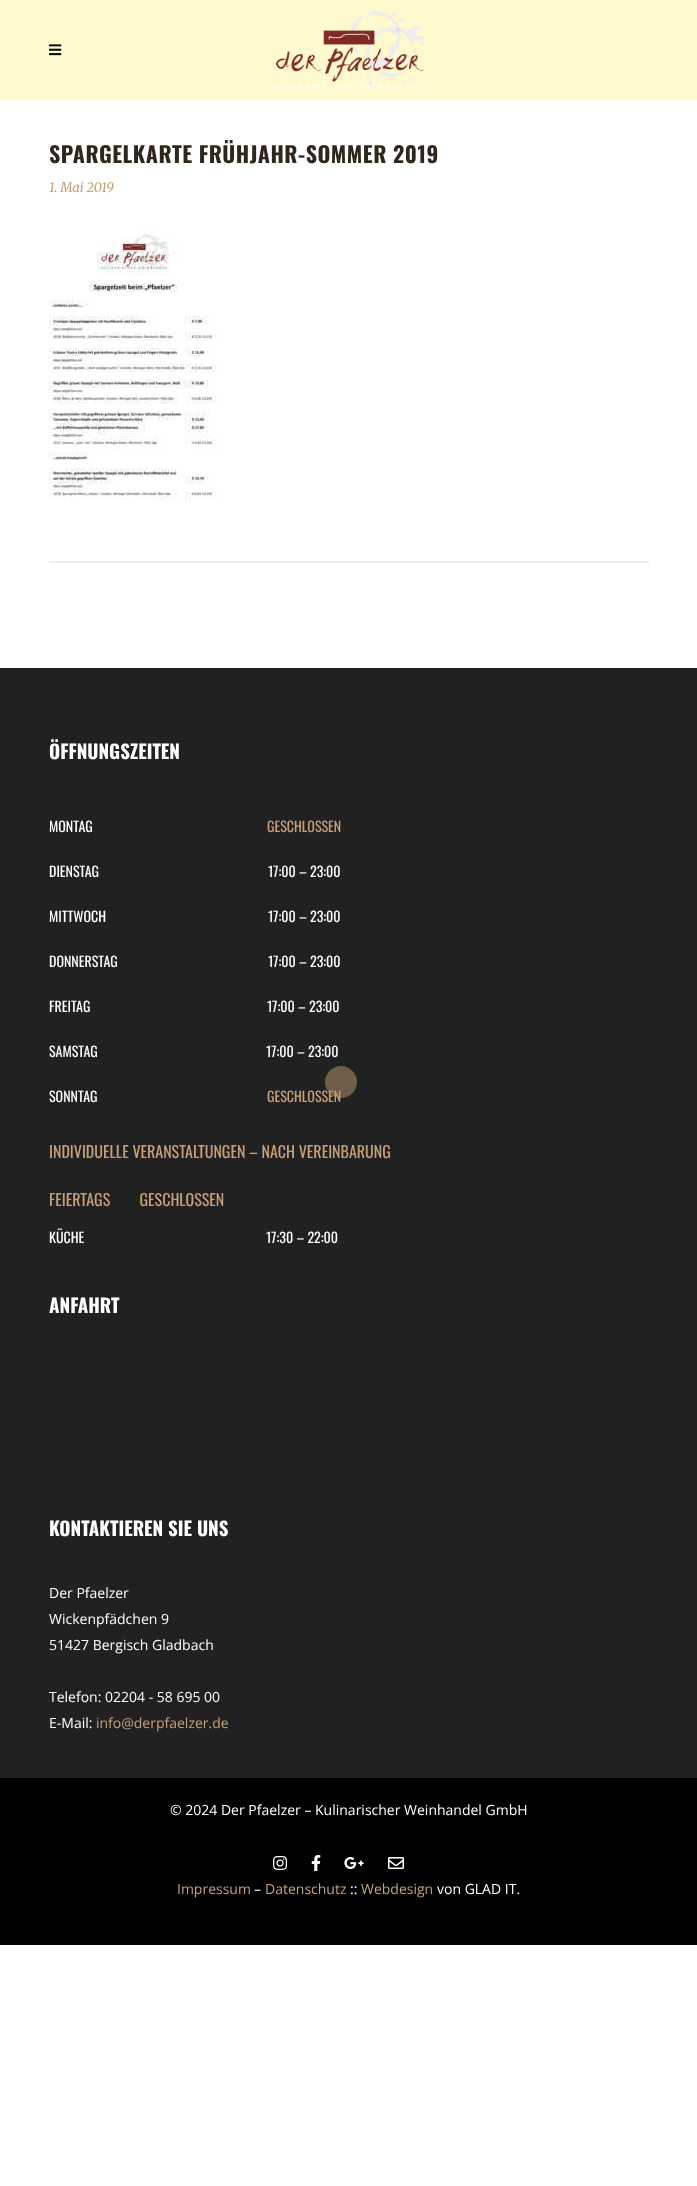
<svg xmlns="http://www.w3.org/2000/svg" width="697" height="2186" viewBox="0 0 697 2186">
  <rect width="100%" height="100%" fill="rgb(255,255,255)"/>
  <rect x="0" y="0" width="697" height="100" fill="rgb(255,250,205)"/>
  <image x="49" y="44" width="13" height="12" href="pic1.png"/>
  <image x="276" y="10" width="149" height="80" href="pic2.png"/>
  <rect x="49" y="561" width="600" height="2" fill="rgb(239,239,239)"/>
  <text x="49" y="163" font-family="Oswald" font-size="22" font-weight="bold" letter-spacing="0.5" fill="rgb(48,39,28)">SPARGELKARTE FRÜHJAHR-SOMMER 2019</text>
  <text x="49" y="192" font-family="Merriweather" font-size="13" font-weight="300" font-style="italic" fill="rgb(199,161,122)">1. Mai 2019</text>
  <image x="49" y="228" width="168" height="272" href="pic3.png"/>
  <rect x="0" y="668" width="697" height="1110" fill="rgb(33,33,33)"/>
  <text x="49" y="759" font-family="Oswald" font-size="19" font-weight="bold" fill="rgb(255,255,255)">ÖFFNUNGSZEITEN</text>
  <text x="49" y="832" font-family="Oswald" font-size="14" fill="rgb(255,255,255)">MONTAG</text>
  <text x="267" y="832" font-family="Oswald" font-size="14" fill="rgb(199,161,122)">GESCHLOSSEN</text>
  <g font-family="Oswald" font-size="14" fill="rgb(255,255,255)">
    <text x="49" y="877">DIENSTAG</text>
    <text x="268" y="877">17:00 – 23:00</text>
    <text x="49" y="922">MITTWOCH</text>
    <text x="268" y="922">17:00 – 23:00</text>
    <text x="49" y="967">DONNERSTAG</text>
    <text x="268" y="967">17:00 – 23:00</text>
    <text x="49" y="1012">FREITAG</text>
    <text x="267" y="1012">17:00 – 23:00</text>
    <text x="49" y="1057">SAMSTAG</text>
    <text x="266" y="1057">17:00 – 23:00</text>
    <text x="49" y="1102">SONNTAG</text>
  </g>
  <text x="267" y="1102" font-family="Oswald" font-size="14" fill="rgb(199,161,122)">GESCHLOSSEN</text>
  <g font-family="Oswald" font-size="16" fill="rgb(199,161,122)">
    <text x="49" y="1158">INDIVIDUELLE VERANSTALTUNGEN – NACH VEREINBARUNG</text>
    <text x="49" y="1206" xml:space="preserve">FEIERTAGS        GESCHLOSSEN</text>
  </g>
  <g font-family="Oswald" font-size="14" fill="rgb(255,255,255)">
    <text x="49" y="1243">KÜCHE</text>
    <text x="266" y="1243">17:30 – 22:00</text>
  </g>
  <g font-family="Oswald" font-size="19" font-weight="bold" fill="rgb(255,255,255)">
    <text x="49" y="1313">ANFAHRT</text>
    <text x="49" y="1536">KONTAKTIEREN SIE UNS</text>
  </g>
  <g font-family="Open Sans" font-size="14" fill="rgb(255,255,255)">
    <text>
      <tspan x="49" y="1598">Der Pfaelzer</tspan>
      <tspan x="49" y="1624">Wickenpfädchen 9</tspan>
      <tspan x="49" y="1650">51427 Bergisch Gladbach</tspan>
    </text>
    <text>
      <tspan x="49" y="1702">Telefon: 02204 - 58 695 00</tspan>
      <tspan x="49" y="1728">E-Mail:</tspan>
    </text>
  </g>
  <text x="96" y="1728" font-family="Open Sans" font-size="14" fill="rgb(199,161,122)">info@derpfaelzer.de</text>
  <rect x="0" y="1778" width="697" height="167" fill="rgb(0,0,0)"/>
  <text x="170" y="1815" font-family="Open Sans" font-size="14" fill="rgb(255,255,255)">© 2024 Der Pfaelzer – Kulinarischer Weinhandel GmbH</text>
  <image x="273" y="1856" width="15" height="14" href="pic4.png"/>
  <image x="311" y="1855" width="10" height="16" href="pic5.png"/>
  <image x="344" y="1857" width="20" height="12" href="pic6.png"/>
  <image x="388" y="1857" width="16" height="12" href="pic7.png"/>
  <text x="177" y="1894" font-family="Open Sans" font-size="14" fill="rgb(199,161,122)">Impressum</text>
  <text x="254" y="1894" font-family="Open Sans" font-size="14" fill="rgb(255,255,255)">–</text>
  <text x="265" y="1894" font-family="Open Sans" font-size="14" fill="rgb(199,161,122)">Datenschutz</text>
  <text x="350" y="1894" font-family="Open Sans" font-size="14" fill="rgb(255,255,255)">::</text>
  <text x="361" y="1894" font-family="Open Sans" font-size="14" fill="rgb(199,161,122)">Webdesign</text>
  <text x="437" y="1894" font-family="Open Sans" font-size="14" fill="rgb(255,255,255)">von GLAD IT.</text>
  <circle cx="341" cy="1082" r="16" fill="rgba(199,161,122,0.47)"/>
</svg>
